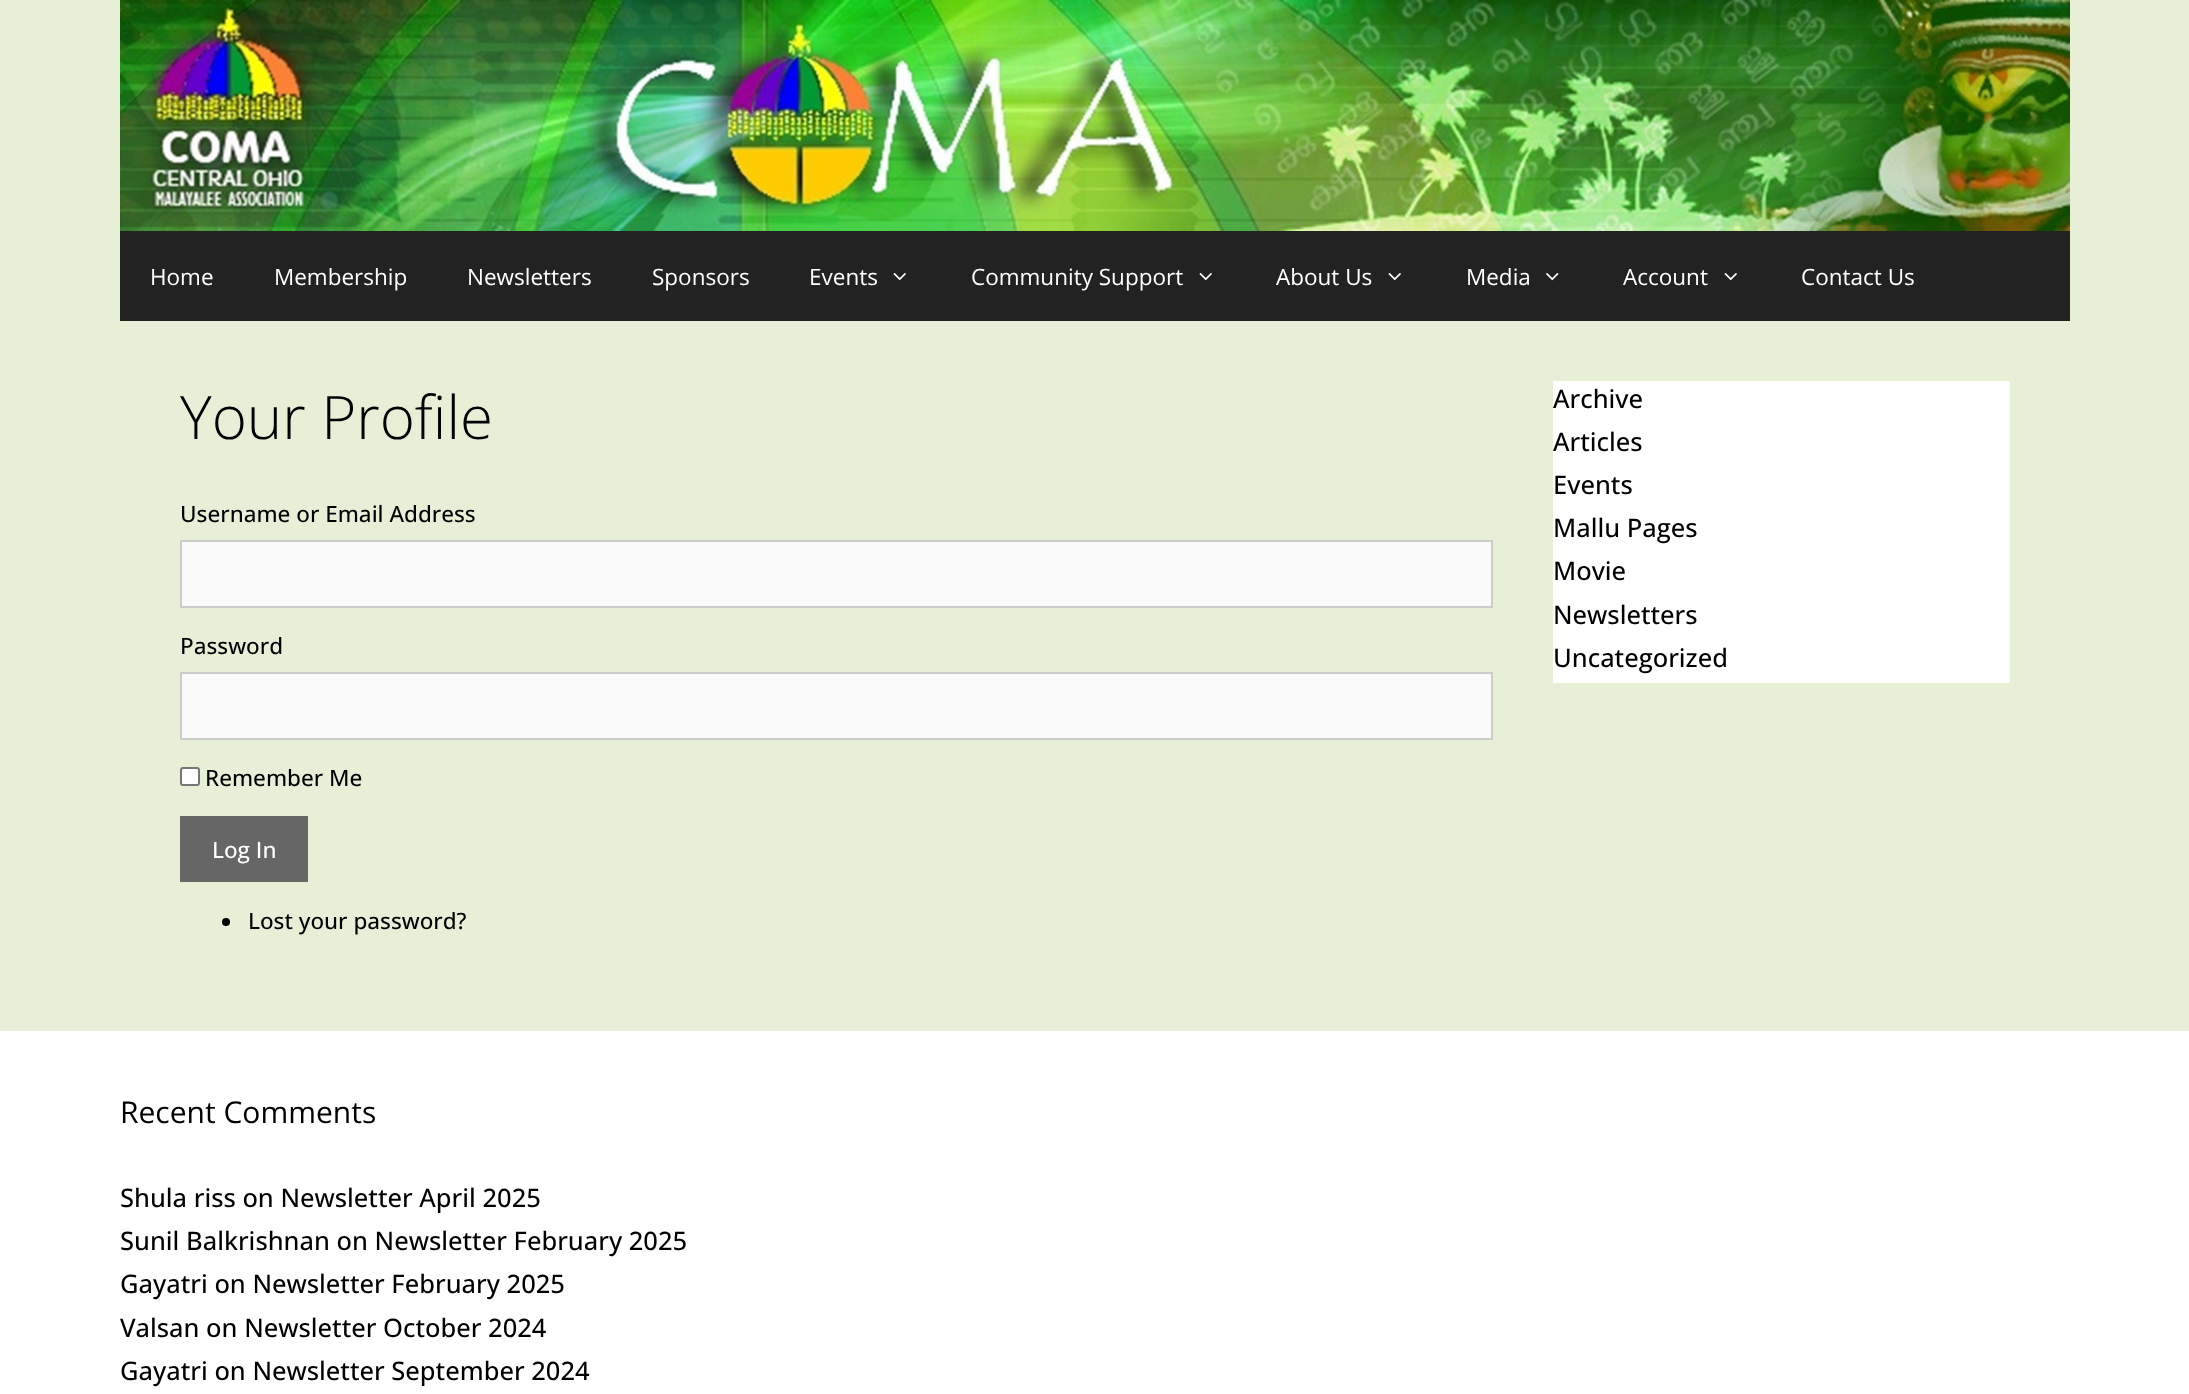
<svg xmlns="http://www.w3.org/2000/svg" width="2189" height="1394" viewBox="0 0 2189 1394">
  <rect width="100%" height="100%" fill="rgb(232,239,215)"/>
  <image x="120" y="0" width="1950" height="231" href="pic1.png"/>
  <rect x="120" y="231" width="1950" height="90" fill="rgb(34,34,34)"/>
  <g font-family="Open Sans" font-size="22.5" fill="rgb(255,255,255)">
    <text x="150" y="285">Home</text>
    <text x="274" y="285">Membership</text>
    <text x="467" y="285">Newsletters</text>
    <text x="652" y="285">Sponsors</text>
    <text x="809" y="285">Events</text>
  </g>
  <image x="893" y="273" width="13" height="8" href="pic2.png"/>
  <text x="971" y="285" font-family="Open Sans" font-size="22.5" fill="rgb(255,255,255)">Community Support</text>
  <image x="1199" y="273" width="13" height="8" href="pic2.png"/>
  <text x="1276" y="285" font-family="Open Sans" font-size="22.5" fill="rgb(255,255,255)">About Us</text>
  <image x="1388" y="273" width="13" height="8" href="pic2.png"/>
  <text x="1466" y="285" font-family="Open Sans" font-size="22.5" fill="rgb(255,255,255)">Media</text>
  <image x="1546" y="273" width="13" height="8" href="pic3.png"/>
  <text x="1623" y="285" font-family="Open Sans" font-size="22.5" fill="rgb(255,255,255)">Account</text>
  <image x="1724" y="273" width="13" height="8" href="pic2.png"/>
  <text x="1801" y="285" font-family="Open Sans" font-size="22.5" fill="rgb(255,255,255)">Contact Us</text>
  <text x="180" y="439" font-family="Open Sans" font-size="60" font-weight="300" fill="rgb(0,0,0)">Your Profile</text>
  <text x="180" y="522" font-family="Open Sans" font-size="22.5" font-weight="500" fill="rgb(0,0,0)">Username or Email Address</text>
  <rect x="181" y="541" width="1311" height="66" fill="rgb(250,250,250)" stroke="rgb(204,204,204)" stroke-width="2"/>
  <text x="180" y="654" font-family="Open Sans" font-size="22.5" font-weight="500" fill="rgb(0,0,0)">Password</text>
  <rect x="181" y="673" width="1311" height="66" fill="rgb(250,250,250)" stroke="rgb(204,204,204)" stroke-width="2"/>
  <rect x="181" y="768" width="18" height="17" rx="2" fill="rgb(255,255,255)" stroke="rgb(118,118,118)" stroke-width="2"/>
  <text x="205" y="786" font-family="Open Sans" font-size="22.5" font-weight="500" fill="rgb(0,0,0)">Remember Me</text>
  <rect x="180" y="816" width="128" height="66" fill="rgb(102,102,102)"/>
  <text x="212" y="858" font-family="Open Sans" font-size="22.5" font-weight="500" fill="rgb(255,255,255)">Log In</text>
  <circle cx="226" cy="922" r="4" fill="rgb(0,0,0)"/>
  <text x="248" y="929" font-family="Open Sans" font-size="22.5" font-weight="500" fill="rgb(0,0,0)">Lost your password?</text>
  <rect x="1553" y="381" width="457" height="302" fill="rgb(255,255,255)"/>
  <g font-family="Open Sans" font-size="25.5" font-weight="500" fill="rgb(0,0,0)">
    <text>
      <tspan x="1553" y="408">Archive</tspan>
      <tspan x="1553" y="451">Articles</tspan>
      <tspan x="1553" y="494">Events</tspan>
      <tspan x="1553" y="537">Mallu Pages</tspan>
      <tspan x="1553" y="580">Movie</tspan>
      <tspan x="1553" y="624">Newsletters</tspan>
      <tspan x="1553" y="667">Uncategorized</tspan>
    </text>
  </g>
  <rect x="0" y="1031" width="2189" height="363" fill="rgb(255,255,255)"/>
  <text x="120" y="1123" font-family="Open Sans" font-size="30" fill="rgb(0,0,0)">Recent Comments</text>
  <g font-family="Open Sans" font-size="25.5" font-weight="500" fill="rgb(0,0,0)">
    <text>
      <tspan x="120" y="1207">Shula riss on Newsletter April 2025</tspan>
      <tspan x="120" y="1250">Sunil Balkrishnan on Newsletter February 2025</tspan>
      <tspan x="120" y="1293">Gayatri on Newsletter February 2025</tspan>
      <tspan x="120" y="1337">Valsan on Newsletter October 2024</tspan>
      <tspan x="120" y="1380">Gayatri on Newsletter September 2024</tspan>
    </text>
  </g>
</svg>
